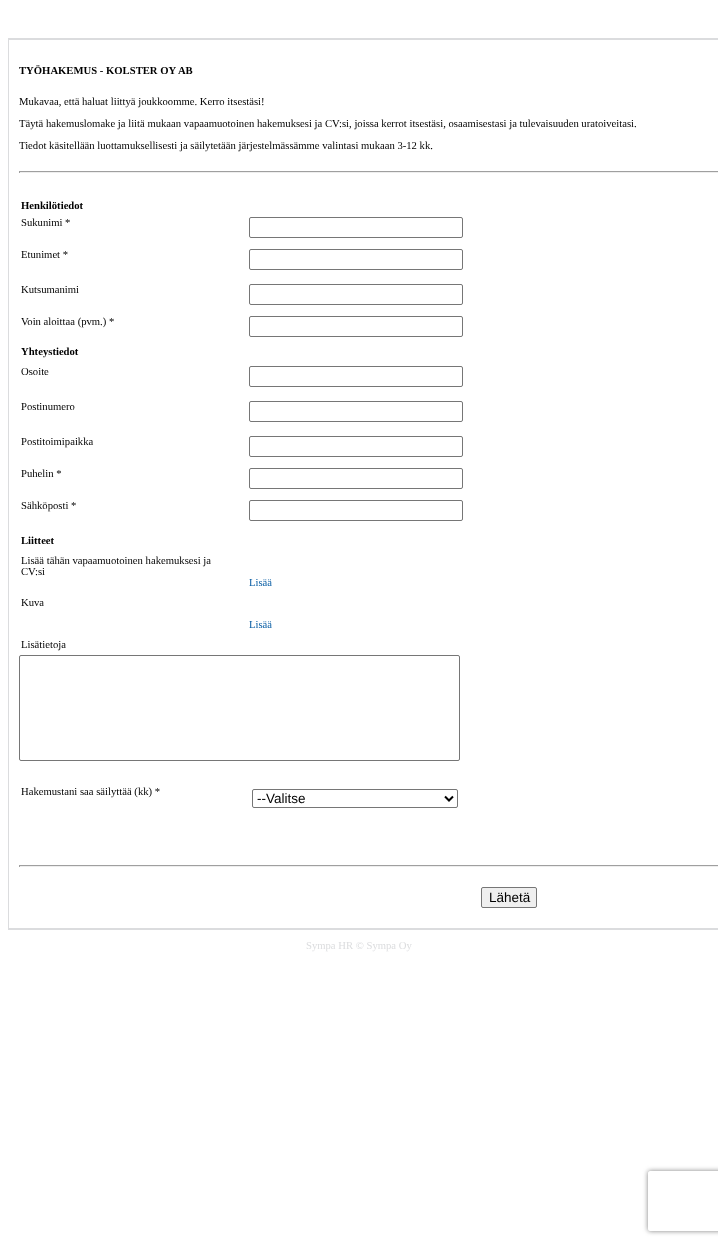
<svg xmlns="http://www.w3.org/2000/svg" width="718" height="1245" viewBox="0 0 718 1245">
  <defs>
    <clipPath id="clip1"><path d="M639 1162H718V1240H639ZM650 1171H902C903 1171 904 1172 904 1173V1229C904 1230 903 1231 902 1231H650C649 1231 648 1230 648 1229V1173C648 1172 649 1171 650 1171Z" clip-rule="evenodd"/></clipPath>
  </defs>
  <rect width="100%" height="100%" fill="rgb(255,255,255)"/>
  <rect x="8" y="38" width="710" height="2" fill="rgb(219,220,222)"/>
  <rect x="8" y="928" width="710" height="2" fill="rgb(219,220,222)"/>
  <rect x="8" y="38" width="1" height="892" fill="rgb(219,220,222)"/>
  <text x="19" y="74" font-family="Liberation Serif" font-size="10.67" font-weight="bold" fill="rgb(0,0,0)">TYÖHAKEMUS - KOLSTER OY AB</text>
  <g font-family="Liberation Serif" font-size="10.67" fill="rgb(0,0,0)">
    <text x="19" y="105">Mukavaa, että haluat liittyä joukkoomme. Kerro itsestäsi!</text>
    <text x="19" y="127">Täytä hakemuslomake ja liitä mukaan vapaamuotoinen hakemuksesi ja CV:si, joissa kerrot itsestäsi, osaamisestasi ja tulevaisuuden uratoiveitasi.</text>
    <text x="19" y="149">Tiedot käsitellään luottamuksellisesti ja säilytetään järjestelmässämme valintasi mukaan 3-12 kk.</text>
  </g>
  <rect x="19" y="171" width="699" height="1" fill="rgb(159,159,159)"/>
  <rect x="19" y="172" width="699" height="1" fill="rgb(238,238,238)"/>
  <rect x="19" y="171" width="1" height="2" fill="rgb(159,159,159)"/>
  <text x="21" y="209" font-family="Liberation Serif" font-size="10.67" font-weight="bold" fill="rgb(0,0,0)">Henkilötiedot</text>
  <text x="21" y="226" font-family="Liberation Serif" font-size="10.67" fill="rgb(0,0,0)">Sukunimi *</text>
  <rect x="249.5" y="217.5" width="213" height="20" rx="1.5" fill="none" stroke="rgb(118,118,118)"/>
  <text x="21" y="258" font-family="Liberation Serif" font-size="10.67" fill="rgb(0,0,0)">Etunimet *</text>
  <rect x="249.5" y="249.5" width="213" height="20" rx="1.5" fill="none" stroke="rgb(118,118,118)"/>
  <text x="21" y="293" font-family="Liberation Serif" font-size="10.67" fill="rgb(0,0,0)">Kutsumanimi</text>
  <rect x="249.5" y="284.5" width="213" height="20" rx="1.5" fill="none" stroke="rgb(118,118,118)"/>
  <text x="21" y="325" font-family="Liberation Serif" font-size="10.67" fill="rgb(0,0,0)">Voin aloittaa (pvm.) *</text>
  <rect x="249.5" y="316.5" width="213" height="20" rx="1.5" fill="none" stroke="rgb(118,118,118)"/>
  <text x="21" y="355" font-family="Liberation Serif" font-size="10.67" font-weight="bold" fill="rgb(0,0,0)">Yhteystiedot</text>
  <text x="21" y="375" font-family="Liberation Serif" font-size="10.67" fill="rgb(0,0,0)">Osoite</text>
  <rect x="249.5" y="366.5" width="213" height="20" rx="1.5" fill="none" stroke="rgb(118,118,118)"/>
  <text x="21" y="410" font-family="Liberation Serif" font-size="10.67" fill="rgb(0,0,0)">Postinumero</text>
  <rect x="249.5" y="401.5" width="213" height="20" rx="1.5" fill="none" stroke="rgb(118,118,118)"/>
  <text x="21" y="445" font-family="Liberation Serif" font-size="10.67" fill="rgb(0,0,0)">Postitoimipaikka</text>
  <rect x="249.5" y="436.5" width="213" height="20" rx="1.5" fill="none" stroke="rgb(118,118,118)"/>
  <text x="21" y="477" font-family="Liberation Serif" font-size="10.67" fill="rgb(0,0,0)">Puhelin *</text>
  <rect x="249.5" y="468.5" width="213" height="20" rx="1.5" fill="none" stroke="rgb(118,118,118)"/>
  <text x="21" y="509" font-family="Liberation Serif" font-size="10.67" fill="rgb(0,0,0)">Sähköposti *</text>
  <rect x="249.5" y="500.5" width="213" height="20" rx="1.5" fill="none" stroke="rgb(118,118,118)"/>
  <text x="21" y="544" font-family="Liberation Serif" font-size="10.67" font-weight="bold" fill="rgb(0,0,0)">Liitteet</text>
  <g font-family="Liberation Serif" font-size="10.67" fill="rgb(0,0,0)">
    <text>
      <tspan x="21" y="564">Lisää tähän vapaamuotoinen hakemuksesi ja</tspan>
      <tspan x="21" y="575">CV:si</tspan>
    </text>
  </g>
  <text x="249" y="586" font-family="Liberation Serif" font-size="10.67" fill="rgb(5,91,163)">Lisää</text>
  <text x="21" y="606" font-family="Liberation Serif" font-size="10.67" fill="rgb(0,0,0)">Kuva</text>
  <text x="249" y="628" font-family="Liberation Serif" font-size="10.67" fill="rgb(5,91,163)">Lisää</text>
  <text x="21" y="648" font-family="Liberation Serif" font-size="10.67" fill="rgb(0,0,0)">Lisätietoja</text>
  <rect x="19.5" y="655.5" width="440" height="105" rx="1.5" fill="none" stroke="rgb(118,118,118)"/>
  <text x="21" y="795" font-family="Liberation Serif" font-size="10.67" fill="rgb(0,0,0)">Hakemustani saa säilyttää (kk) *</text>
  <rect x="252.5" y="789.5" width="205" height="18" rx="1.5" fill="none" stroke="rgb(118,118,118)"/>
  <path d="M445 796.5L449 800.5L453 796.5" fill="none" stroke="rgb(0,0,0)" stroke-width="2"/>
  <text x="257" y="803" font-family="Liberation Sans" font-size="13.5" fill="rgb(0,0,0)">--Valitse</text>
  <rect x="19" y="865" width="699" height="1" fill="rgb(159,159,159)"/>
  <rect x="19" y="866" width="699" height="1" fill="rgb(238,238,238)"/>
  <rect x="19" y="865" width="1" height="2" fill="rgb(159,159,159)"/>
  <rect x="481.5" y="887.5" width="55" height="20" rx="1.5" fill="rgb(239,239,239)" stroke="rgb(118,118,118)"/>
  <text x="489" y="902" font-family="Liberation Sans" font-size="13.5" fill="rgb(0,0,0)">Lähetä</text>
  <text x="306" y="949" font-family="Liberation Serif" font-size="10.67" fill="rgb(219,220,222)">Sympa HR © Sympa Oy</text>
  <g clip-path="url(#clip1)">
    <rect x="648" y="1171" width="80" height="60" rx="2" fill="rgb(128,128,128)" filter="blur(2.5px)"/>
  </g>
</svg>
